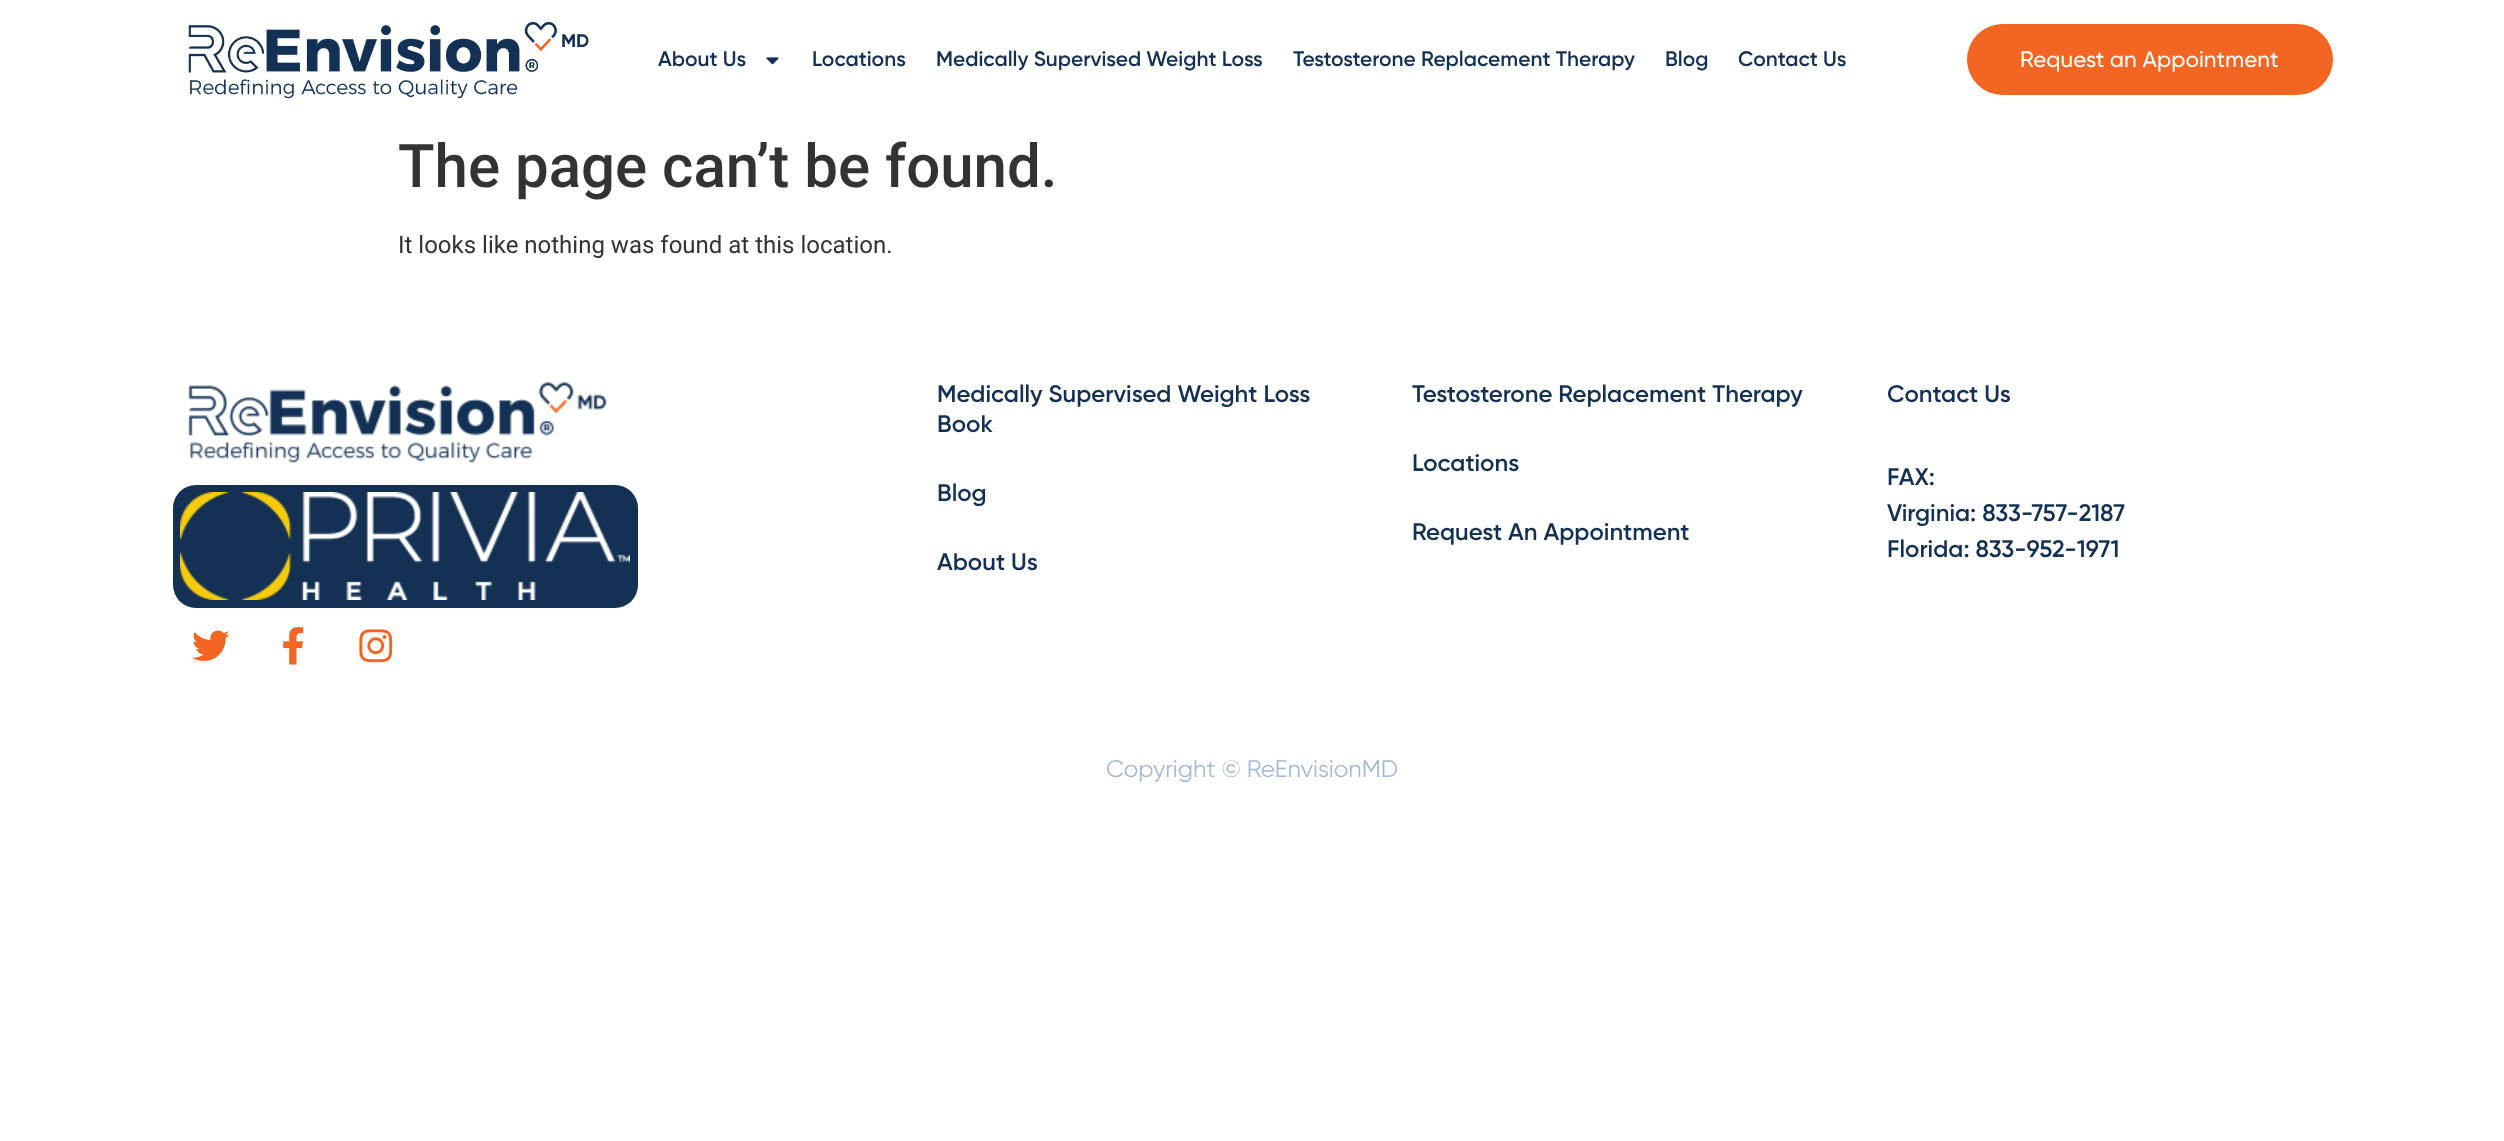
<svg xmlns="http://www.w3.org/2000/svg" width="2504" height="1141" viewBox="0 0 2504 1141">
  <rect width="100%" height="100%" fill="rgb(255,255,255)"/>
  <image x="188" y="21" width="401" height="78" href="pic1.png"/>
  <text x="658" y="66" font-family="Gilroy" font-size="21" font-weight="600" fill="rgb(20,49,84)">About Us</text>
  <image x="766" y="57" width="13" height="8" href="pic2.png"/>
  <g font-family="Gilroy" font-size="21" font-weight="600" fill="rgb(20,49,84)">
    <text x="812" y="66">Locations</text>
    <text x="936" y="66">Medically Supervised Weight Loss</text>
    <text x="1293" y="66">Testosterone Replacement Therapy</text>
    <text x="1665" y="66">Blog</text>
    <text x="1738" y="66">Contact Us</text>
  </g>
  <rect x="1967" y="24" width="366" height="71" rx="35.5" fill="rgb(242,101,34)"/>
  <text x="2020" y="67" font-family="Gilroy" font-size="22.5" font-weight="500" fill="rgb(255,255,255)">Request an Appointment</text>
  <text x="398" y="187" font-family="Roboto" font-size="60" font-weight="500" fill="rgb(51,51,51)">The page can’t be found.</text>
  <text x="398" y="253" font-family="Roboto" font-size="24" fill="rgb(51,51,51)">It looks like nothing was found at this location.</text>
  <image x="188" y="382" width="419" height="81" href="pic3.png"/>
  <rect x="173" y="485" width="465" height="123" rx="23" fill="rgb(20,49,84)"/>
  <image x="180" y="492" width="450" height="108" href="pic4.png"/>
  <image x="192" y="630" width="38" height="31" href="pic5.png"/>
  <image x="283" y="627" width="21" height="38" href="pic6.png"/>
  <image x="359" y="629" width="34" height="34" href="pic7.png"/>
  <g font-family="Gilroy" font-size="24" font-weight="600" fill="rgb(20,49,84)">
    <text>
      <tspan x="937" y="402">Medically Supervised Weight Loss</tspan>
      <tspan x="937" y="432">Book</tspan>
    </text>
    <text x="937" y="501">Blog</text>
    <text x="937" y="570">About Us</text>
    <text x="1412" y="402">Testosterone Replacement Therapy</text>
    <text x="1412" y="471">Locations</text>
    <text x="1412" y="540">Request An Appointment</text>
    <text x="1887" y="402">Contact Us</text>
    <text>
      <tspan x="1887" y="485">FAX:</tspan>
      <tspan x="1887" y="521">Virginia: 833-757-2187</tspan>
      <tspan x="1887" y="557">Florida: 833-952-1971</tspan>
    </text>
  </g>
  <text x="1106" y="777" font-family="Gilroy" font-size="24" fill="rgb(162,184,211)">Copyright © ReEnvisionMD</text>
</svg>
